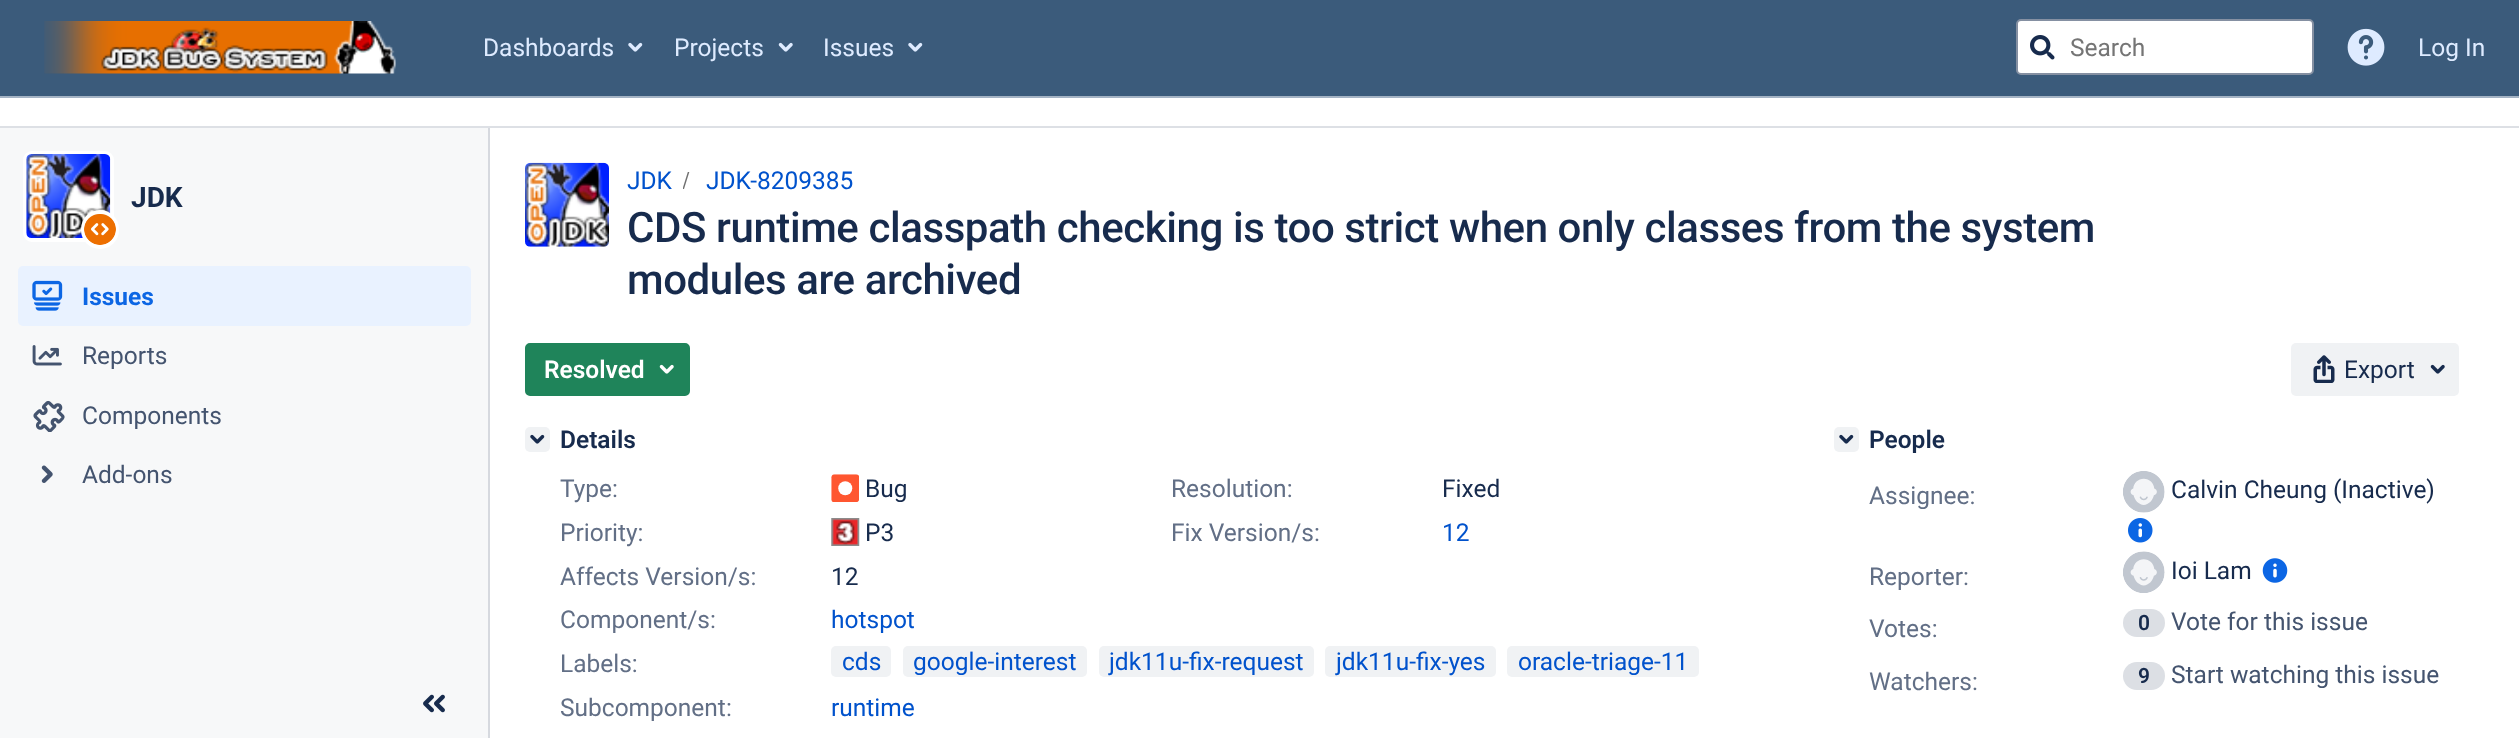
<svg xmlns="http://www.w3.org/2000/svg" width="2519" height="738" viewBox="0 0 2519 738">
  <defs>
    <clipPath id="clip1"><rect x="683" y="172" width="7" height="17"/></clipPath>
  </defs>
  <rect width="100%" height="100%" fill="rgb(255,255,255)"/>
  <rect x="0" y="0" width="2519" height="96" fill="rgb(59,91,123)"/>
  <rect x="0" y="96" width="2519" height="2" fill="rgb(164,179,196)"/>
  <image x="44" y="21" width="352" height="53" href="pic1.png"/>
  <text x="483" y="56" font-family="Roboto" font-size="24.5" fill="rgb(222,235,255)">Dashboards</text>
  <image x="628" y="42" width="15" height="10" href="pic2.png"/>
  <text x="674" y="56" font-family="Roboto" font-size="24.5" fill="rgb(222,235,255)">Projects</text>
  <image x="778" y="42" width="15" height="10" href="pic3.png"/>
  <text x="823" y="56" font-family="Roboto" font-size="24.5" fill="rgb(222,235,255)">Issues</text>
  <image x="908" y="42" width="15" height="10" href="pic2.png"/>
  <rect x="2017" y="20" width="296" height="54" rx="4" fill="rgb(255,255,255)" stroke="rgb(133,144,162)" stroke-width="2"/>
  <image x="2030" y="35" width="25" height="25" href="pic4.png"/>
  <text x="2070" y="56" font-family="Roboto" font-size="24.5" fill="rgb(117,117,117)">Search</text>
  <image x="2347" y="28" width="38" height="38" href="pic5.png"/>
  <text x="2418" y="56" font-family="Roboto" font-size="24.5" fill="rgb(222,235,255)">Log In</text>
  <rect x="0" y="126" width="2519" height="2" fill="rgb(221,224,229)"/>
  <rect x="0" y="128" width="488" height="610" fill="rgb(247,248,249)"/>
  <rect x="488" y="128" width="2" height="610" fill="rgb(214,217,223)"/>
  <rect x="25" y="153" width="87" height="87" rx="7" fill="none" stroke="rgb(255,255,255)" stroke-width="4"/>
  <image x="26" y="154" width="85" height="84" href="pic6.png"/>
  <rect x="81" y="210" width="38" height="39" rx="19" fill="rgb(255,255,255)"/>
  <image x="84" y="214" width="32" height="31" href="pic7.png"/>
  <text x="131" y="207" font-family="Roboto" font-size="28" font-weight="bold" fill="rgb(23,43,77)">JDK</text>
  <rect x="18" y="266" width="453" height="60" rx="5" fill="rgb(233,242,255)"/>
  <image x="32" y="280" width="31" height="31" href="pic8.png"/>
  <text x="82" y="305" font-family="Roboto" font-size="24.5" font-weight="bold" fill="rgb(12,102,228)">Issues</text>
  <image x="32" y="345" width="30" height="21" href="pic9.png"/>
  <text x="82" y="364" font-family="Roboto" font-size="24.5" fill="rgb(68,84,111)">Reports</text>
  <image x="33" y="400" width="32" height="32" href="pic10.png"/>
  <text x="82" y="424" font-family="Roboto" font-size="24.5" fill="rgb(68,84,111)">Components</text>
  <image x="41" y="465" width="12" height="18" href="pic11.png"/>
  <text x="82" y="483" font-family="Roboto" font-size="24.5" fill="rgb(68,84,111)">Add-ons</text>
  <image x="423" y="694" width="22" height="19" href="pic12.png"/>
  <image x="525" y="162" width="84" height="85" href="pic13.png"/>
  <text x="627" y="189" font-family="Roboto" font-size="24.5" fill="rgb(0,82,204)">JDK</text>
  <g clip-path="url(#clip1)">
    <path d="M684 189L689.5 171.5H688L682.5 189Z" fill="rgb(112,112,112)"/>
  </g>
  <text x="706" y="189" font-family="Roboto" font-size="24.5" fill="rgb(0,82,204)">JDK-8209385</text>
  <g font-family="Roboto" font-size="42" font-weight="500" letter-spacing="-0.42" fill="rgb(23,43,77)">
    <text>
      <tspan x="627" y="242">CDS runtime classpath checking is too strict when only classes from the system</tspan>
      <tspan x="627" y="294">modules are archived</tspan>
    </text>
  </g>
  <rect x="526" y="344" width="163" height="51" rx="4" fill="rgb(31,132,90)" stroke="rgb(31,132,90)" stroke-width="2"/>
  <text x="544" y="378" font-family="Roboto" font-size="24.5" font-weight="600" fill="rgb(255,255,255)">Resolved</text>
  <image x="659" y="364" width="15" height="10" href="pic14.png"/>
  <rect x="2291" y="343" width="168" height="53" rx="5" fill="rgb(240,242,244)"/>
  <image x="2313" y="355" width="22" height="28" href="pic15.png"/>
  <text x="2344" y="378" font-family="Roboto" font-size="24.5" fill="rgb(23,43,77)">Export</text>
  <image x="2430" y="364" width="15" height="10" href="pic16.png"/>
  <rect x="525" y="427" width="25" height="25" rx="5" fill="rgb(240,242,244)"/>
  <image x="530" y="434" width="15" height="10" href="pic17.png"/>
  <text x="560" y="448" font-family="Roboto" font-size="24.5" font-weight="600" fill="rgb(23,43,77)">Details</text>
  <text x="560" y="497" font-family="Roboto" font-size="24.5" fill="rgb(98,111,134)">Type:</text>
  <image x="831" y="474" width="28" height="28" href="pic18.png"/>
  <text x="865" y="497" font-family="Roboto" font-size="24.5" fill="rgb(23,43,77)">Bug</text>
  <text x="1171" y="497" font-family="Roboto" font-size="24.5" fill="rgb(98,111,134)">Resolution:</text>
  <text x="1442" y="497" font-family="Roboto" font-size="24.5" fill="rgb(23,43,77)">Fixed</text>
  <text x="560" y="541" font-family="Roboto" font-size="24.5" fill="rgb(98,111,134)">Priority:</text>
  <image x="831" y="518" width="29" height="28" href="pic19.png"/>
  <text x="865" y="541" font-family="Roboto" font-size="24.5" fill="rgb(23,43,77)">P3</text>
  <text x="1171" y="541" font-family="Roboto" font-size="24.5" fill="rgb(98,111,134)">Fix Version/s:</text>
  <text x="1442" y="541" font-family="Roboto" font-size="24.5" fill="rgb(0,82,204)">12</text>
  <text x="560" y="585" font-family="Roboto" font-size="24.5" fill="rgb(98,111,134)">Affects Version/s:</text>
  <text x="831" y="585" font-family="Roboto" font-size="24.5" fill="rgb(23,43,77)">12</text>
  <text x="560" y="628" font-family="Roboto" font-size="24.5" fill="rgb(98,111,134)">Component/s:</text>
  <text x="831" y="628" font-family="Roboto" font-size="24.5" fill="rgb(0,82,204)">hotspot</text>
  <text x="560" y="672" font-family="Roboto" font-size="24.5" fill="rgb(98,111,134)">Labels:</text>
  <rect x="831" y="646" width="60" height="31" rx="5" fill="rgb(240,242,244)"/>
  <text x="842" y="670" font-family="Roboto" font-size="24.5" fill="rgb(0,82,204)">cds</text>
  <rect x="903" y="646" width="184" height="31" rx="5" fill="rgb(240,242,244)"/>
  <text x="913" y="670" font-family="Roboto" font-size="24.5" fill="rgb(0,82,204)">google-interest</text>
  <rect x="1099" y="646" width="215" height="31" rx="5" fill="rgb(240,242,244)"/>
  <text x="1109" y="670" font-family="Roboto" font-size="24.5" fill="rgb(0,82,204)">jdk11u-fix-request</text>
  <rect x="1325" y="646" width="171" height="31" rx="5" fill="rgb(240,242,244)"/>
  <text x="1336" y="670" font-family="Roboto" font-size="24.5" fill="rgb(0,82,204)">jdk11u-fix-yes</text>
  <rect x="1507" y="646" width="192" height="31" rx="5" fill="rgb(240,242,244)"/>
  <text x="1518" y="670" font-family="Roboto" font-size="24.5" fill="rgb(0,82,204)">oracle-triage-11</text>
  <text x="560" y="716" font-family="Roboto" font-size="24.5" fill="rgb(98,111,134)">Subcomponent:</text>
  <text x="831" y="716" font-family="Roboto" font-size="24.5" fill="rgb(0,82,204)">runtime</text>
  <rect x="1834" y="427" width="25" height="25" rx="5" fill="rgb(240,242,244)"/>
  <image x="1839" y="434" width="15" height="10" href="pic17.png"/>
  <text x="1869" y="448" font-family="Roboto" font-size="24.5" font-weight="600" fill="rgb(23,43,77)">People</text>
  <text x="1869" y="504" font-family="Roboto" font-size="24.5" fill="rgb(98,111,134)">Assignee:</text>
  <image x="2123" y="471" width="42" height="42" href="pic20.png"/>
  <text x="2171" y="498" font-family="Roboto" font-size="24.5" fill="rgb(23,43,77)">Calvin Cheung (Inactive)</text>
  <image x="2128" y="518" width="25" height="25" href="pic21.png"/>
  <text x="1869" y="585" font-family="Roboto" font-size="24.5" fill="rgb(98,111,134)">Reporter:</text>
  <image x="2123" y="551" width="42" height="42" href="pic22.png"/>
  <text x="2171" y="579" font-family="Roboto" font-size="24.5" fill="rgb(23,43,77)">Ioi Lam</text>
  <image x="2262" y="558" width="26" height="25" href="pic23.png"/>
  <text x="1869" y="637" font-family="Roboto" font-size="24.5" fill="rgb(98,111,134)">Votes:</text>
  <rect x="2123" y="609" width="42" height="28" rx="14" fill="rgb(220,223,228)"/>
  <text x="2138" y="630" font-family="Roboto" font-size="21" font-weight="600" fill="rgb(23,43,77)">0</text>
  <text x="2171" y="630" font-family="Roboto" font-size="24.5" fill="rgb(68,84,111)">Vote for this issue</text>
  <text x="1869" y="690" font-family="Roboto" font-size="24.5" fill="rgb(98,111,134)">Watchers:</text>
  <rect x="2123" y="662" width="42" height="28" rx="14" fill="rgb(220,223,228)"/>
  <text x="2138" y="683" font-family="Roboto" font-size="21" font-weight="600" fill="rgb(23,43,77)">9</text>
  <text x="2171" y="683" font-family="Roboto" font-size="24.5" fill="rgb(68,84,111)">Start watching this issue</text>
</svg>
